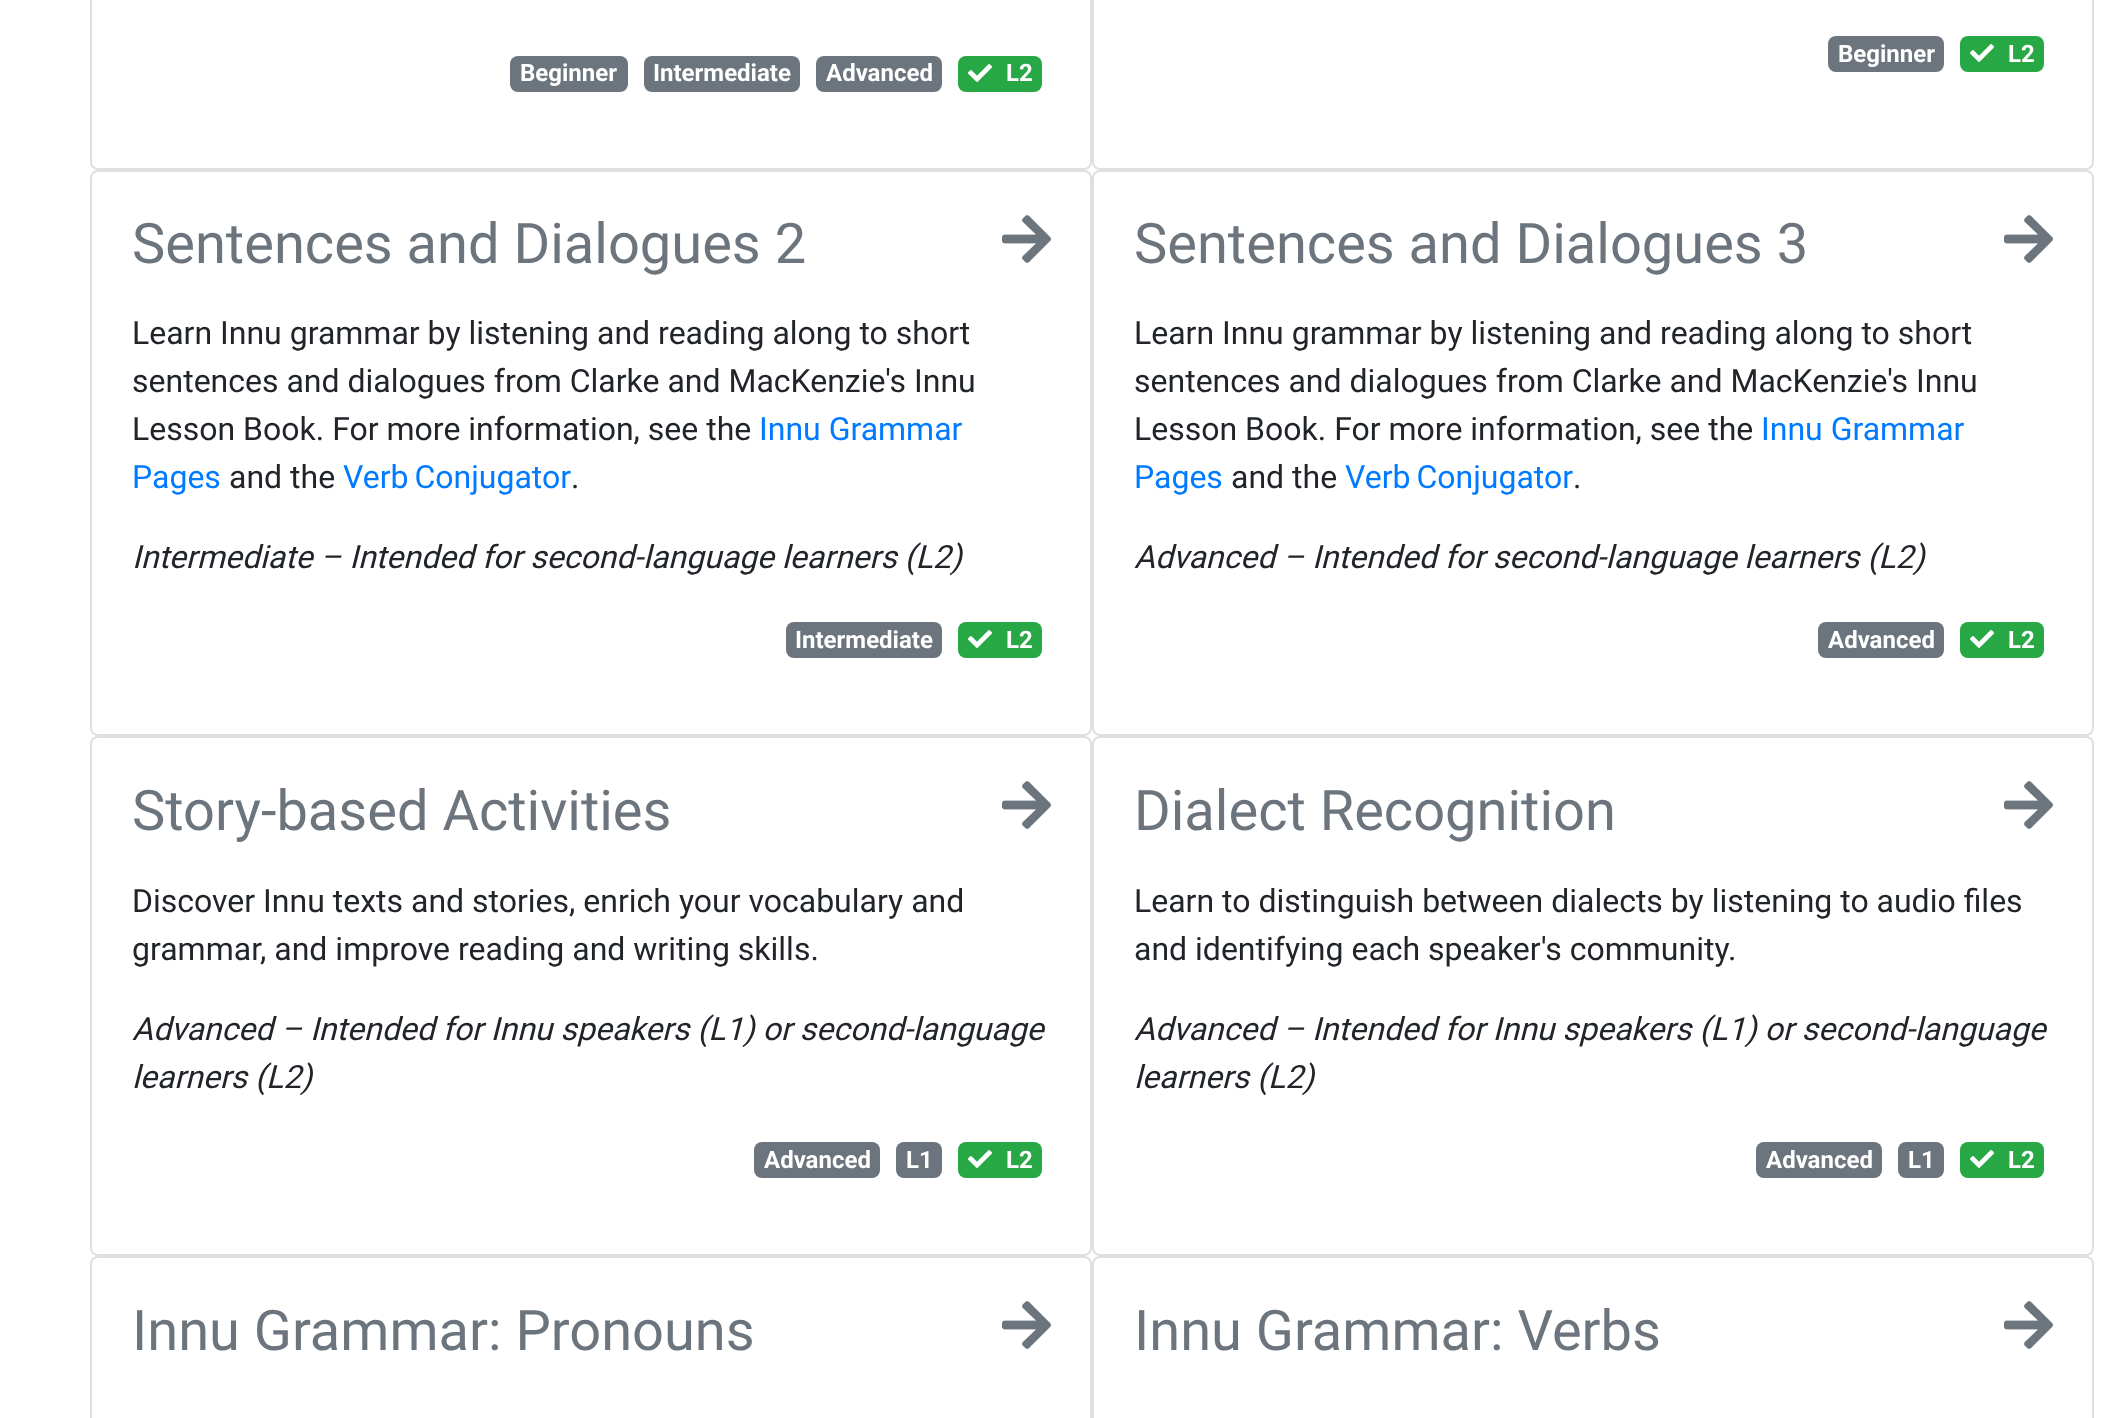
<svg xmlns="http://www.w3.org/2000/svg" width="2123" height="1418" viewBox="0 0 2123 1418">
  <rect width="100%" height="100%" fill="rgb(255,255,255)"/>
  <rect x="1093" y="-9" width="1000" height="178" rx="7" fill="none" stroke="rgb(223,223,223)" stroke-width="2"/>
  <rect x="1828" y="36" width="116" height="36" rx="8" fill="rgb(108,117,125)"/>
  <text x="1838" y="62" font-family="Roboto" font-size="24" font-weight="bold" fill="rgb(255,255,255)">Beginner</text>
  <rect x="1960" y="36" width="84" height="36" rx="8" fill="rgb(40,167,69)"/>
  <image x="1970" y="44" width="24" height="18" href="pic1.png"/>
  <text x="2008" y="62" font-family="Roboto" font-size="24" font-weight="bold" fill="rgb(255,255,255)">L2</text>
  <rect x="91" y="-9" width="1000" height="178" rx="7" fill="none" stroke="rgb(223,223,223)" stroke-width="2"/>
  <rect x="510" y="56" width="118" height="36" rx="8" fill="rgb(108,117,125)"/>
  <text x="520" y="81" font-family="Roboto" font-size="24" font-weight="bold" fill="rgb(255,255,255)">Beginner</text>
  <rect x="644" y="56" width="156" height="36" rx="8" fill="rgb(108,117,125)"/>
  <text x="653" y="81" font-family="Roboto" font-size="24" font-weight="bold" fill="rgb(255,255,255)">Intermediate</text>
  <rect x="816" y="56" width="126" height="36" rx="8" fill="rgb(108,117,125)"/>
  <text x="826" y="81" font-family="Roboto" font-size="24" font-weight="bold" fill="rgb(255,255,255)">Advanced</text>
  <rect x="958" y="56" width="84" height="36" rx="8" fill="rgb(40,167,69)"/>
  <image x="968" y="64" width="24" height="18" href="pic1.png"/>
  <text x="1006" y="81" font-family="Roboto" font-size="24" font-weight="bold" fill="rgb(255,255,255)">L2</text>
  <rect x="91" y="171" width="1000" height="564" rx="7" fill="none" stroke="rgb(223,223,223)" stroke-width="2"/>
  <text x="132" y="263" font-family="Roboto" font-size="56" fill="rgb(108,117,125)">Sentences and Dialogues 2</text>
  <image x="1002" y="215" width="49" height="48" href="pic2.png"/>
  <g font-family="Roboto" font-size="32" fill="rgb(33,37,41)">
    <text>
      <tspan x="132" y="344">Learn Innu grammar by listening and reading along to short</tspan>
      <tspan x="132" y="392">sentences and dialogues from Clarke and MacKenzie's Innu</tspan>
      <tspan x="132" y="440">Lesson Book. For more information, see the</tspan>
    </text>
  </g>
  <g font-family="Roboto" font-size="32" fill="rgb(0,123,255)">
    <text x="759" y="440">Innu Grammar</text>
    <text x="132" y="488">Pages</text>
  </g>
  <text x="229" y="488" font-family="Roboto" font-size="32" fill="rgb(33,37,41)">and the</text>
  <text x="343" y="488" word-spacing="-2" font-family="Roboto" font-size="32" fill="rgb(0,123,255)">Verb Conjugator</text>
  <text x="571" y="488" font-family="Roboto" font-size="32" fill="rgb(33,37,41)">.</text>
  <text x="132" y="568" font-family="Roboto" font-size="32" font-style="italic" fill="rgb(33,37,41)">Intermediate – Intended for second-language learners (L2)</text>
  <rect x="786" y="622" width="156" height="36" rx="8" fill="rgb(108,117,125)"/>
  <text x="795" y="648" font-family="Roboto" font-size="24" font-weight="bold" fill="rgb(255,255,255)">Intermediate</text>
  <rect x="958" y="622" width="84" height="36" rx="8" fill="rgb(40,167,69)"/>
  <image x="968" y="630" width="24" height="18" href="pic1.png"/>
  <text x="1006" y="648" font-family="Roboto" font-size="24" font-weight="bold" fill="rgb(255,255,255)">L2</text>
  <rect x="1093" y="171" width="1000" height="564" rx="7" fill="none" stroke="rgb(223,223,223)" stroke-width="2"/>
  <text x="1134" y="263" font-family="Roboto" font-size="56" fill="rgb(108,117,125)">Sentences and Dialogues 3</text>
  <image x="2004" y="215" width="49" height="48" href="pic2.png"/>
  <g font-family="Roboto" font-size="32" fill="rgb(33,37,41)">
    <text>
      <tspan x="1134" y="344">Learn Innu grammar by listening and reading along to short</tspan>
      <tspan x="1134" y="392">sentences and dialogues from Clarke and MacKenzie's Innu</tspan>
      <tspan x="1134" y="440">Lesson Book. For more information, see the</tspan>
    </text>
  </g>
  <g font-family="Roboto" font-size="32" fill="rgb(0,123,255)">
    <text x="1761" y="440">Innu Grammar</text>
    <text x="1134" y="488">Pages</text>
  </g>
  <text x="1231" y="488" font-family="Roboto" font-size="32" fill="rgb(33,37,41)">and the</text>
  <text x="1345" y="488" word-spacing="-2" font-family="Roboto" font-size="32" fill="rgb(0,123,255)">Verb Conjugator</text>
  <text x="1573" y="488" font-family="Roboto" font-size="32" fill="rgb(33,37,41)">.</text>
  <text x="1134" y="568" font-family="Roboto" font-size="32" font-style="italic" fill="rgb(33,37,41)">Advanced – Intended for second-language learners (L2)</text>
  <rect x="1818" y="622" width="126" height="36" rx="8" fill="rgb(108,117,125)"/>
  <text x="1828" y="648" font-family="Roboto" font-size="24" font-weight="bold" fill="rgb(255,255,255)">Advanced</text>
  <rect x="1960" y="622" width="84" height="36" rx="8" fill="rgb(40,167,69)"/>
  <image x="1970" y="630" width="24" height="18" href="pic1.png"/>
  <text x="2008" y="648" font-family="Roboto" font-size="24" font-weight="bold" fill="rgb(255,255,255)">L2</text>
  <rect x="91" y="737" width="1000" height="518" rx="7" fill="none" stroke="rgb(223,223,223)" stroke-width="2"/>
  <text x="132" y="830" font-family="Roboto" font-size="56" fill="rgb(108,117,125)">Story-based Activities</text>
  <image x="1002" y="781" width="49" height="48" href="pic2.png"/>
  <g font-family="Roboto" font-size="32" fill="rgb(33,37,41)">
    <text>
      <tspan x="132" y="912">Discover Innu texts and stories, enrich your vocabulary and</tspan>
      <tspan x="132" y="960">grammar, and improve reading and writing skills.</tspan>
    </text>
  </g>
  <g font-family="Roboto" font-size="32" font-style="italic" fill="rgb(33,37,41)">
    <text>
      <tspan x="132" y="1040">Advanced – Intended for Innu speakers (L1) or second-language</tspan>
      <tspan x="132" y="1088">learners (L2)</tspan>
    </text>
  </g>
  <rect x="754" y="1142" width="126" height="36" rx="8" fill="rgb(108,117,125)"/>
  <text x="764" y="1168" font-family="Roboto" font-size="24" font-weight="bold" fill="rgb(255,255,255)">Advanced</text>
  <rect x="896" y="1142" width="46" height="36" rx="8" fill="rgb(108,117,125)"/>
  <text x="906" y="1168" font-family="Roboto" font-size="24" font-weight="bold" fill="rgb(255,255,255)">L1</text>
  <rect x="958" y="1142" width="84" height="36" rx="8" fill="rgb(40,167,69)"/>
  <image x="968" y="1150" width="24" height="18" href="pic1.png"/>
  <text x="1006" y="1168" font-family="Roboto" font-size="24" font-weight="bold" fill="rgb(255,255,255)">L2</text>
  <rect x="1093" y="737" width="1000" height="518" rx="7" fill="none" stroke="rgb(223,223,223)" stroke-width="2"/>
  <text x="1134" y="830" font-family="Roboto" font-size="56" fill="rgb(108,117,125)">Dialect Recognition</text>
  <image x="2004" y="781" width="49" height="48" href="pic2.png"/>
  <g font-family="Roboto" font-size="32" fill="rgb(33,37,41)">
    <text>
      <tspan x="1134" y="912">Learn to distinguish between dialects by listening to audio files</tspan>
      <tspan x="1134" y="960">and identifying each speaker's community.</tspan>
    </text>
  </g>
  <g font-family="Roboto" font-size="32" font-style="italic" fill="rgb(33,37,41)">
    <text>
      <tspan x="1134" y="1040">Advanced – Intended for Innu speakers (L1) or second-language</tspan>
      <tspan x="1134" y="1088">learners (L2)</tspan>
    </text>
  </g>
  <rect x="1756" y="1142" width="126" height="36" rx="8" fill="rgb(108,117,125)"/>
  <text x="1766" y="1168" font-family="Roboto" font-size="24" font-weight="bold" fill="rgb(255,255,255)">Advanced</text>
  <rect x="1898" y="1142" width="46" height="36" rx="8" fill="rgb(108,117,125)"/>
  <text x="1908" y="1168" font-family="Roboto" font-size="24" font-weight="bold" fill="rgb(255,255,255)">L1</text>
  <rect x="1960" y="1142" width="84" height="36" rx="8" fill="rgb(40,167,69)"/>
  <image x="1970" y="1150" width="24" height="18" href="pic1.png"/>
  <text x="2008" y="1168" font-family="Roboto" font-size="24" font-weight="bold" fill="rgb(255,255,255)">L2</text>
  <rect x="91" y="1257" width="1000" height="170" rx="7" fill="none" stroke="rgb(223,223,223)" stroke-width="2"/>
  <text x="132" y="1350" font-family="Roboto" font-size="56" fill="rgb(108,117,125)">Innu Grammar: Pronouns</text>
  <image x="1002" y="1301" width="49" height="48" href="pic2.png"/>
  <rect x="1093" y="1257" width="1000" height="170" rx="7" fill="none" stroke="rgb(223,223,223)" stroke-width="2"/>
  <text x="1134" y="1350" font-family="Roboto" font-size="56" fill="rgb(108,117,125)">Innu Grammar: Verbs</text>
  <image x="2004" y="1301" width="49" height="48" href="pic2.png"/>
</svg>
